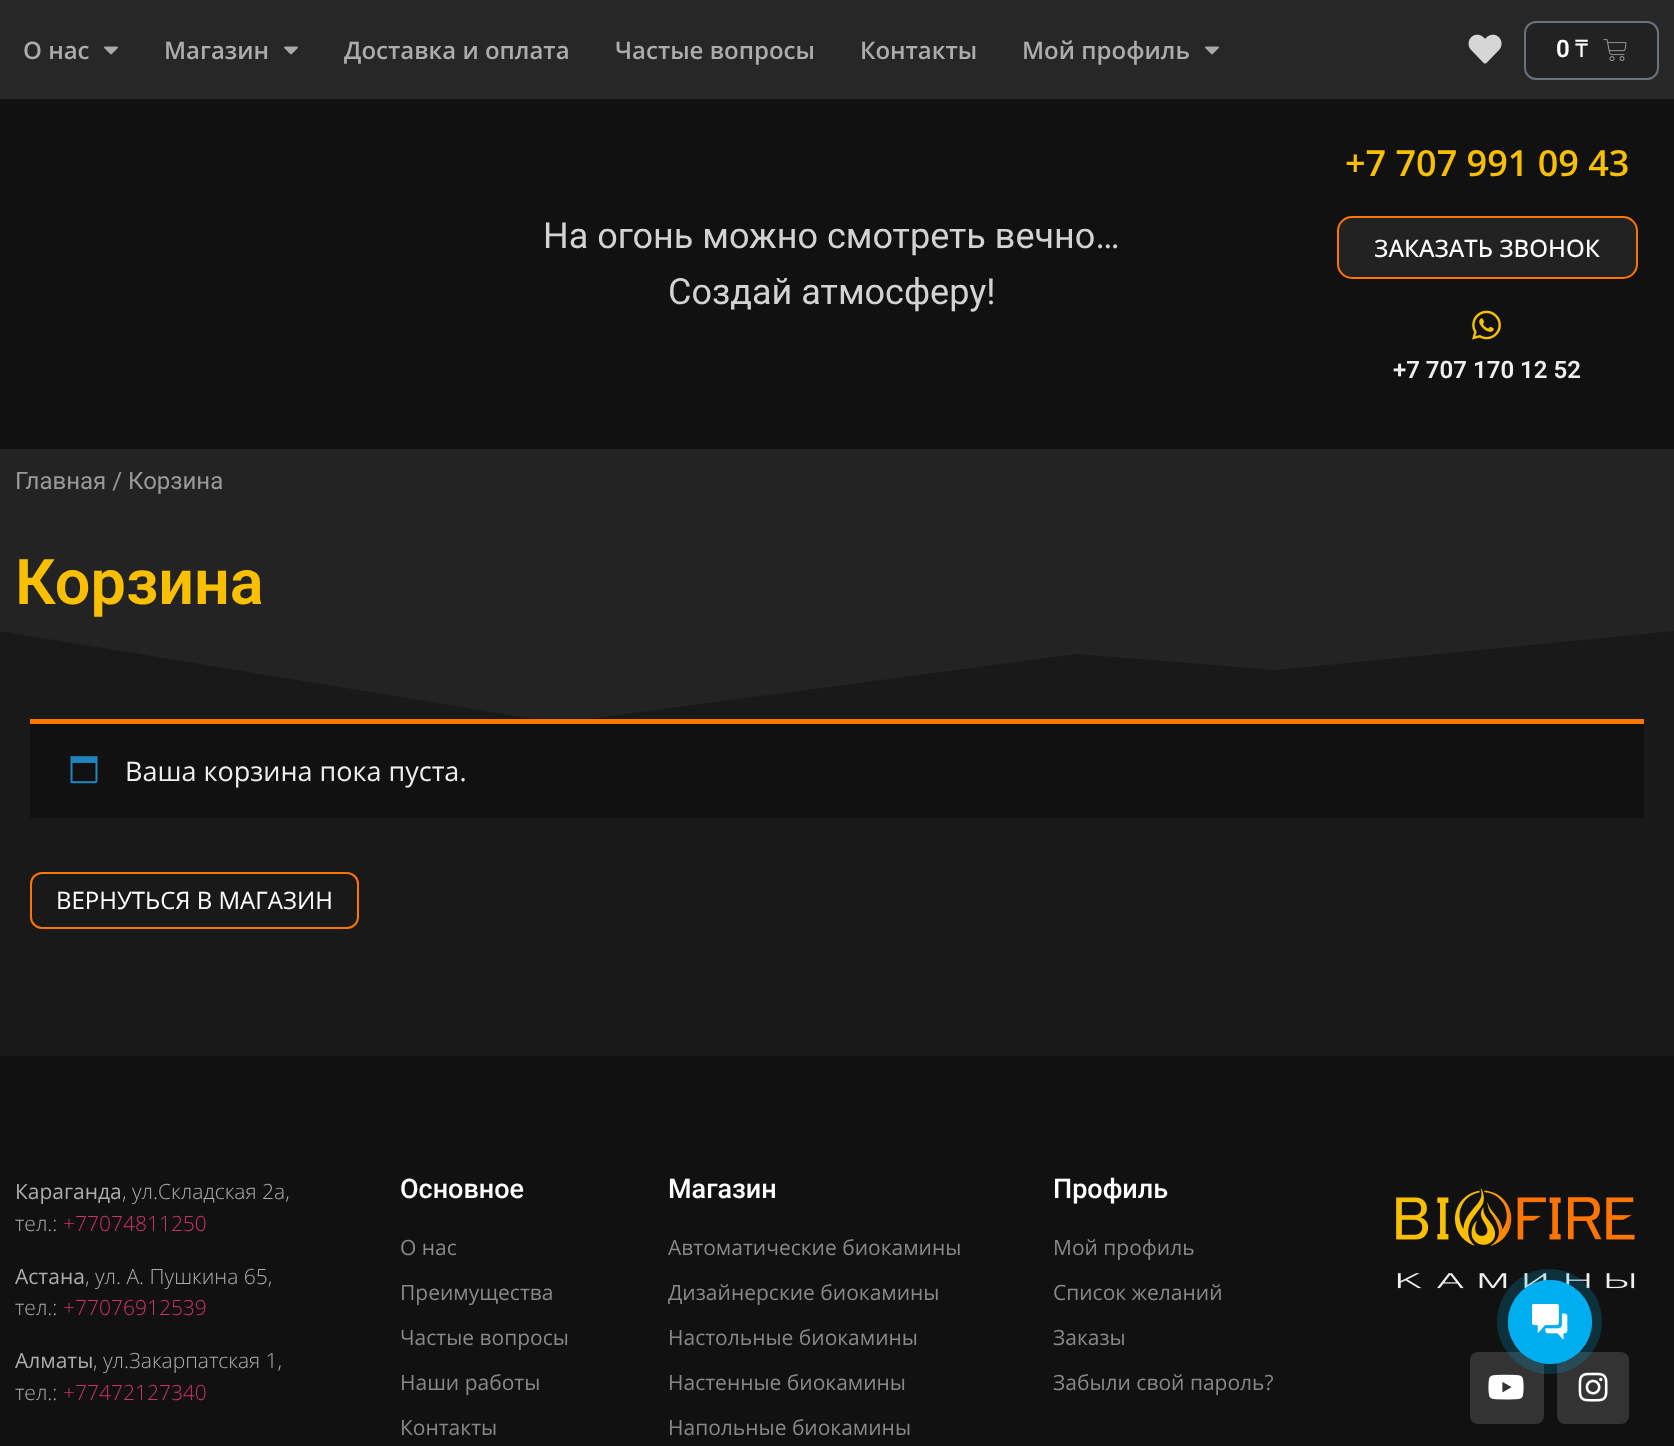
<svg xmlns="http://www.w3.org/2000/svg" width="1674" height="1446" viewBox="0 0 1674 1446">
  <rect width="100%" height="100%" fill="rgb(35,35,35)"/>
  <rect x="0" y="0" width="1674" height="99" fill="rgb(39,39,39)"/>
  <text x="23" y="59" font-family="Open Sans" font-size="24" font-weight="600" fill="rgb(172,172,172)">О нас</text>
  <image x="104" y="46" width="14" height="9" href="pic1.png"/>
  <text x="164" y="59" font-family="Open Sans" font-size="24" font-weight="600" fill="rgb(172,172,172)">Магазин</text>
  <image x="284" y="46" width="14" height="9" href="pic1.png"/>
  <g font-family="Open Sans" font-size="24" font-weight="600" fill="rgb(172,172,172)">
    <text x="344" y="59">Доставка и оплата</text>
    <text x="615" y="59">Частые вопросы</text>
    <text x="860" y="59">Контакты</text>
    <text x="1022" y="59">Мой профиль</text>
  </g>
  <image x="1205" y="46" width="14" height="9" href="pic1.png"/>
  <image x="1468" y="34" width="34" height="30" href="pic2.png"/>
  <rect x="1525" y="22" width="133" height="57" rx="11" fill="rgb(34,34,34)" stroke="rgb(105,114,125)" stroke-width="2"/>
  <text x="1556" y="57" font-family="Roboto" font-size="24" font-weight="600" fill="rgb(255,255,255)">0</text>
  <text x="1575" y="57" font-family="Noto Sans" font-size="24" fill="rgb(255,255,255)">₸</text>
  <image x="1603" y="39" width="24" height="22" href="pic3.png"/>
  <rect x="0" y="99" width="1674" height="350" fill="rgb(17,17,17)"/>
  <g font-family="Roboto" font-size="36" fill="rgb(211,211,211)">
    <text x="543" y="248">На огонь можно смотреть вечно…</text>
    <text x="668" y="304">Создай атмосферу!</text>
  </g>
  <text x="1345" y="176" font-family="Open Sans" font-size="36" font-weight="600" fill="rgb(250,192,0)">+7 707 991 09 43</text>
  <rect x="1338" y="217" width="299" height="61" rx="14" fill="rgb(34,34,34)" stroke="rgb(255,117,0)" stroke-width="2"/>
  <text x="1374" y="257" font-family="Open Sans" font-size="24" font-weight="500" fill="rgb(255,255,255)">ЗАКАЗАТЬ ЗВОНОК</text>
  <image x="1472" y="310" width="29" height="30" href="pic4.png"/>
  <text x="1393" y="378" font-family="Roboto" font-size="24" font-weight="600" fill="rgb(238,238,238)">+7 707 170 12 52</text>
  <text x="15" y="489" font-family="Roboto" font-size="24" fill="rgb(153,153,153)">Главная / Корзина</text>
  <text x="15" y="604" font-family="Roboto" font-size="63" font-weight="600" fill="rgb(250,192,0)">Корзина</text>
  <rect x="0" y="631" width="1674" height="425" fill="rgb(25,25,25)"/>
  <path d="M1276 670L1077 654L558 723L-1 631V627H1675V631" fill="rgb(35,35,35)"/>
  <rect x="30" y="724" width="1614" height="94" fill="rgb(17,17,17)"/>
  <rect x="30" y="719" width="1614" height="5" fill="rgb(255,117,0)"/>
  <image x="70" y="756" width="28" height="28" href="pic5.png"/>
  <text x="125" y="781" font-family="Open Sans" font-size="27" fill="rgb(238,238,238)">Ваша корзина пока пуста.</text>
  <rect x="31" y="873" width="327" height="55" rx="11" fill="none" stroke="rgb(255,117,0)" stroke-width="2"/>
  <text x="56" y="909" font-family="Open Sans" font-size="24" fill="rgb(255,255,255)">ВЕРНУТЬСЯ В МАГАЗИН</text>
  <rect x="0" y="1056" width="1674" height="390" fill="rgb(17,17,17)"/>
  <text x="15" y="1199" font-family="Open Sans" font-size="21" fill="rgb(172,172,172)">Караганда</text>
  <g font-family="Open Sans" font-size="21" font-weight="300" fill="rgb(172,172,172)">
    <text x="122" y="1199">, ул.Складская 2а,</text>
    <text x="15" y="1231">тел.:</text>
  </g>
  <text x="63" y="1231" font-family="Open Sans" font-size="21" font-weight="300" fill="rgb(204,51,102)">+77074811250</text>
  <text x="15" y="1284" font-family="Open Sans" font-size="21" fill="rgb(172,172,172)">Астана</text>
  <g font-family="Open Sans" font-size="21" font-weight="300" fill="rgb(172,172,172)">
    <text x="85" y="1284">, ул. А. Пушкина 65,</text>
    <text x="15" y="1315">тел.:</text>
  </g>
  <text x="63" y="1315" font-family="Open Sans" font-size="21" font-weight="300" fill="rgb(204,51,102)">+77076912539</text>
  <text x="15" y="1368" font-family="Open Sans" font-size="21" fill="rgb(172,172,172)">Алматы</text>
  <g font-family="Open Sans" font-size="21" font-weight="300" fill="rgb(172,172,172)">
    <text x="93" y="1368">, ул.Закарпатская 1,</text>
    <text x="15" y="1400">тел.:</text>
  </g>
  <text x="63" y="1400" font-family="Open Sans" font-size="21" font-weight="300" fill="rgb(204,51,102)">+77472127340</text>
  <text x="400" y="1198" font-family="Roboto" font-size="27" font-weight="500" fill="rgb(255,255,255)">Основное</text>
  <g font-family="Open Sans" font-size="21" fill="rgb(136,136,136)">
    <text x="400" y="1255">О нас</text>
    <text x="400" y="1300">Преимущества</text>
    <text x="400" y="1345">Частые вопросы</text>
    <text x="400" y="1390">Наши работы</text>
    <text x="400" y="1435">Контакты</text>
  </g>
  <text x="668" y="1198" font-family="Roboto" font-size="27" font-weight="500" fill="rgb(255,255,255)">Магазин</text>
  <g font-family="Open Sans" font-size="21" fill="rgb(136,136,136)">
    <text x="668" y="1255">Автоматические биокамины</text>
    <text x="668" y="1300">Дизайнерские биокамины</text>
    <text x="668" y="1345">Настольные биокамины</text>
    <text x="668" y="1390">Настенные биокамины</text>
    <text x="668" y="1435">Напольные биокамины</text>
  </g>
  <text x="1053" y="1198" font-family="Roboto" font-size="27" font-weight="500" fill="rgb(255,255,255)">Профиль</text>
  <g font-family="Open Sans" font-size="21" fill="rgb(136,136,136)">
    <text x="1053" y="1255">Мой профиль</text>
    <text x="1053" y="1300">Список желаний</text>
    <text x="1053" y="1345">Заказы</text>
    <text x="1053" y="1390">Забыли свой пароль?</text>
  </g>
  <image x="1396" y="1188" width="239" height="101" href="pic6.png"/>
  <rect x="1470" y="1352" width="74" height="72" rx="8" fill="rgb(51,51,51)"/>
  <image x="1488" y="1374" width="36" height="26" href="pic7.png"/>
  <rect x="1557" y="1352" width="72" height="72" rx="8" fill="rgb(51,51,51)"/>
  <image x="1578" y="1372" width="30" height="30" href="pic8.png"/>
  <circle cx="1549.5" cy="1321.5" r="52.5" fill="rgba(0,174,239,0.2)"/>
  <circle cx="1550" cy="1322" r="41.5" fill="none" stroke="rgb(0,174,239)"/>
  <circle cx="1550" cy="1322" r="42" fill="rgb(0,174,239)"/>
  <image x="1532" y="1304" width="36" height="36" href="pic9.png"/>
</svg>
